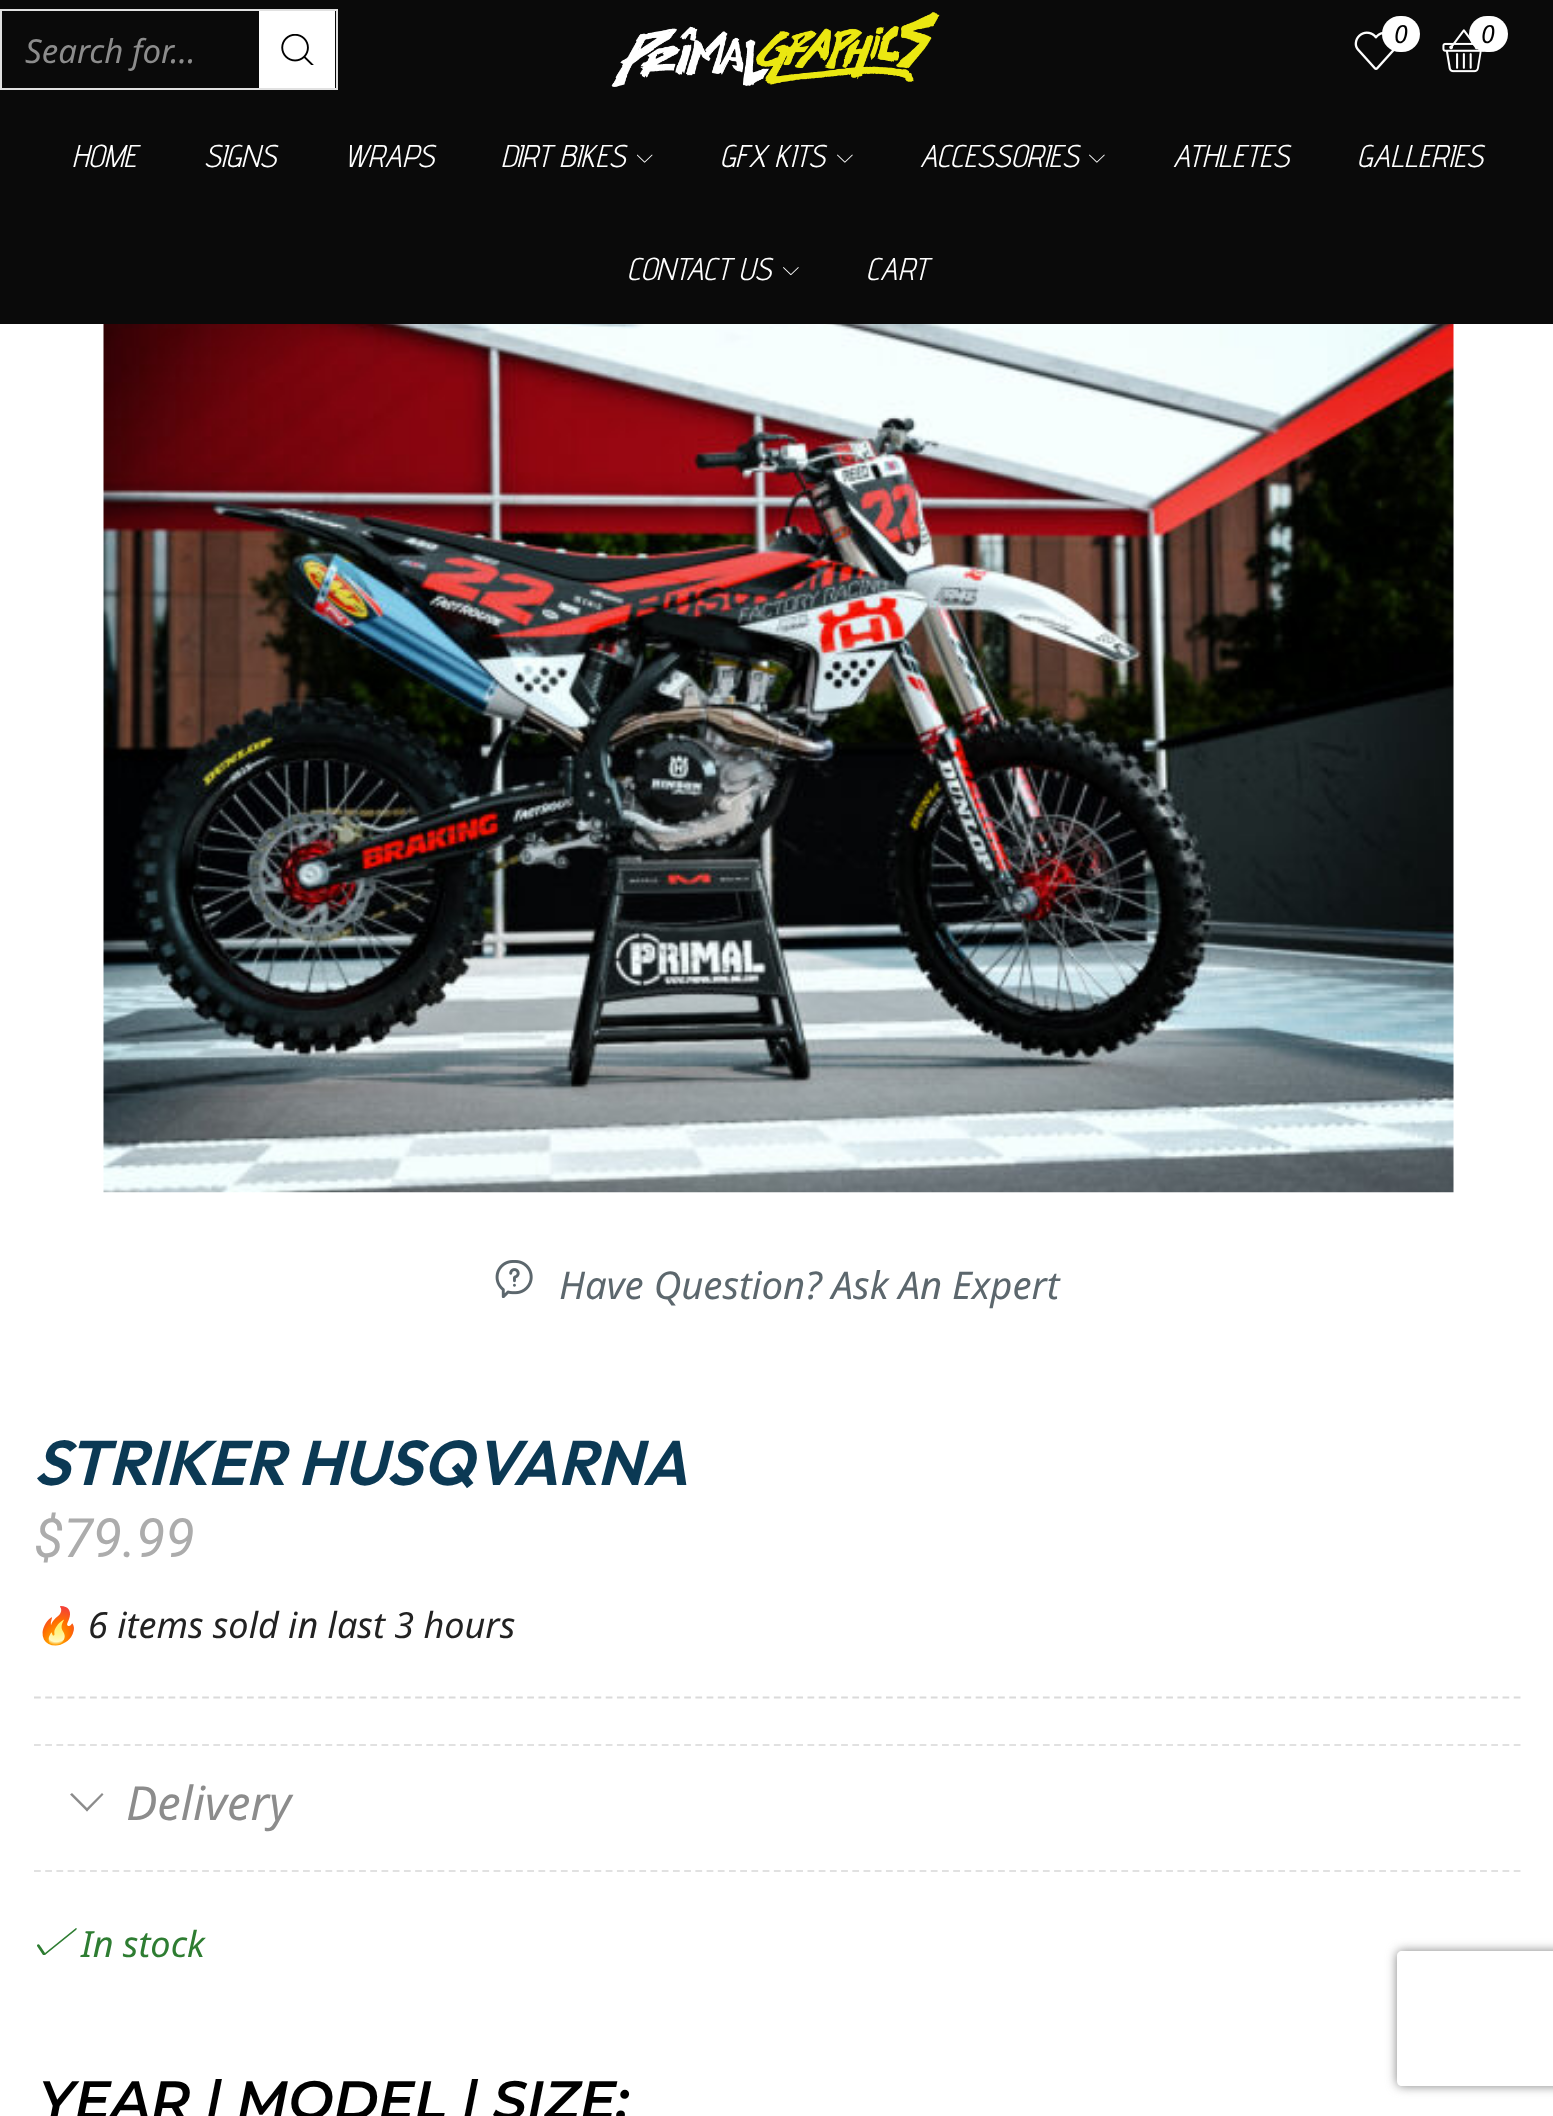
<svg xmlns="http://www.w3.org/2000/svg" width="1553" height="2116" viewBox="0 0 1553 2116">
  <defs>
    <clipPath id="clip1"><path d="M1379 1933H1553V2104H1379ZM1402 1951H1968C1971 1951 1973 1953 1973 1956V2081C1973 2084 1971 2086 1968 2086H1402C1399 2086 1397 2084 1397 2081V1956C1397 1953 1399 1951 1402 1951Z" clip-rule="evenodd"/></clipPath>
  </defs>
  <rect width="100%" height="100%" fill="rgb(255,255,255)"/>
  <rect x="0" y="0" width="1553" height="324" fill="rgb(10,10,10)"/>
  <image x="611" y="12" width="329" height="75" href="pic1.png"/>
  <image x="1354" y="31" width="41" height="39" href="pic2.png"/>
  <rect x="1382" y="16" width="38" height="36" rx="18" fill="rgb(255,255,255)"/>
  <text x="1394" y="43" font-family="Noto Sans" font-size="25" font-style="italic" fill="rgb(0,0,0)">0</text>
  <image x="1442" y="29" width="42" height="44" href="pic3.png"/>
  <rect x="1469" y="16" width="39" height="36" rx="18" fill="rgb(255,255,255)"/>
  <text x="1481" y="43" font-family="Noto Sans" font-size="25" font-style="italic" fill="rgb(0,0,0)">0</text>
  <rect x="1" y="10" width="336" height="79" fill="none" stroke="rgb(225,225,225)" stroke-width="2"/>
  <text x="25" y="63" font-family="Noto Sans" font-size="33" font-style="italic" fill="rgb(140,140,140)">Search for...</text>
  <rect x="259" y="11" width="76" height="77" fill="rgb(255,255,255)"/>
  <image x="281" y="34" width="33" height="31" href="pic4.png"/>
  <g font-family="Advent Pro" font-size="31.5" font-style="italic" fill="rgb(255,255,255)">
    <text x="72" y="167">HOME</text>
    <text x="204" y="167">SIGNS</text>
    <text x="344" y="167">WRAPS</text>
    <text x="501" y="167">DIRT BIKES</text>
  </g>
  <image x="637" y="154" width="16" height="9" href="pic5.png"/>
  <text x="720" y="167" font-family="Advent Pro" font-size="31.5" font-style="italic" fill="rgb(255,255,255)">GFX KITS</text>
  <image x="837" y="154" width="16" height="9" href="pic6.png"/>
  <text x="920" y="167" font-family="Advent Pro" font-size="31.5" font-style="italic" fill="rgb(255,255,255)">ACCESSORIES</text>
  <image x="1089" y="154" width="16" height="9" href="pic6.png"/>
  <g font-family="Advent Pro" font-size="31.5" font-style="italic" fill="rgb(255,255,255)">
    <text x="1173" y="167">ATHLETES</text>
    <text x="1357" y="167">GALLERIES</text>
    <text x="627" y="280">CONTACT US</text>
  </g>
  <image x="783" y="267" width="16" height="9" href="pic7.png"/>
  <text x="866" y="280" font-family="Advent Pro" font-size="31.5" font-style="italic" fill="rgb(255,255,255)">CART</text>
  <image x="103" y="324" width="1351" height="869" href="pic8.png"/>
  <image x="495" y="1260" width="38" height="38" href="pic9.png"/>
  <text x="559" y="1299" font-family="Noto Sans" font-size="38.25" font-style="italic" fill="rgb(92,103,109)">Have Question? Ask An Expert</text>
  <text x="34" y="1485" font-family="Outfit" font-size="63" font-weight="600" font-style="italic" fill="rgb(11,57,84)">STRIKER HUSQVARNA</text>
  <text x="34" y="1557" font-family="Roboto" font-size="54" font-style="italic" fill="rgb(172,172,172)">$79.99</text>
  <text x="34" y="1638" font-family="Noto Color Emoji" font-size="36" font-style="italic" fill="rgb(34,34,34)">🔥</text>
  <text x="88" y="1638" font-family="Noto Sans" font-size="36" font-style="italic" fill="rgb(34,34,34)">6 items sold in last 3 hours</text>
  <path d="M34 1697.5H1521" fill="none" stroke="rgb(218,218,218)" stroke-width="2.2" stroke-dasharray="6.75 4.46"/>
  <path d="M34 1745H1521" fill="none" stroke="rgb(225,225,225)" stroke-width="2.2" stroke-dasharray="6.75 4.46"/>
  <path d="M34 1871H1521" fill="none" stroke="rgb(225,225,225)" stroke-width="2.2" stroke-dasharray="6.75 4.46"/>
  <path d="M72 1793L88.5 1809.5L87 1811.5L70 1794.5Z" fill="rgb(140,140,140)"/>
  <path d="M85.5 1809.5L102 1793L103.5 1794.5L87 1811.5Z" fill="rgb(140,140,140)"/>
  <text x="126" y="1820" font-family="Noto Sans" font-size="47" font-style="italic" fill="rgb(140,140,140)">Delivery</text>
  <path d="M43 1955H45L76 1930C77 1929 77 1928 76 1928L45 1953L41 1947C40 1946 39 1943 37 1945V1946Z" fill="rgb(46,125,50)"/>
  <text x="81" y="1957" font-family="Noto Sans" font-size="36" font-style="italic" fill="rgb(46,125,50)">In stock</text>
  <text x="38" y="2119" font-family="Montserrat" font-size="54" font-weight="600" font-style="italic" fill="rgb(0,0,0)">YEAR | MODEL | SIZE:</text>
  <g clip-path="url(#clip1)">
    <rect x="1397" y="1951" width="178" height="135" rx="5" fill="rgb(128,128,128)" filter="blur(5.5px)"/>
  </g>
</svg>
